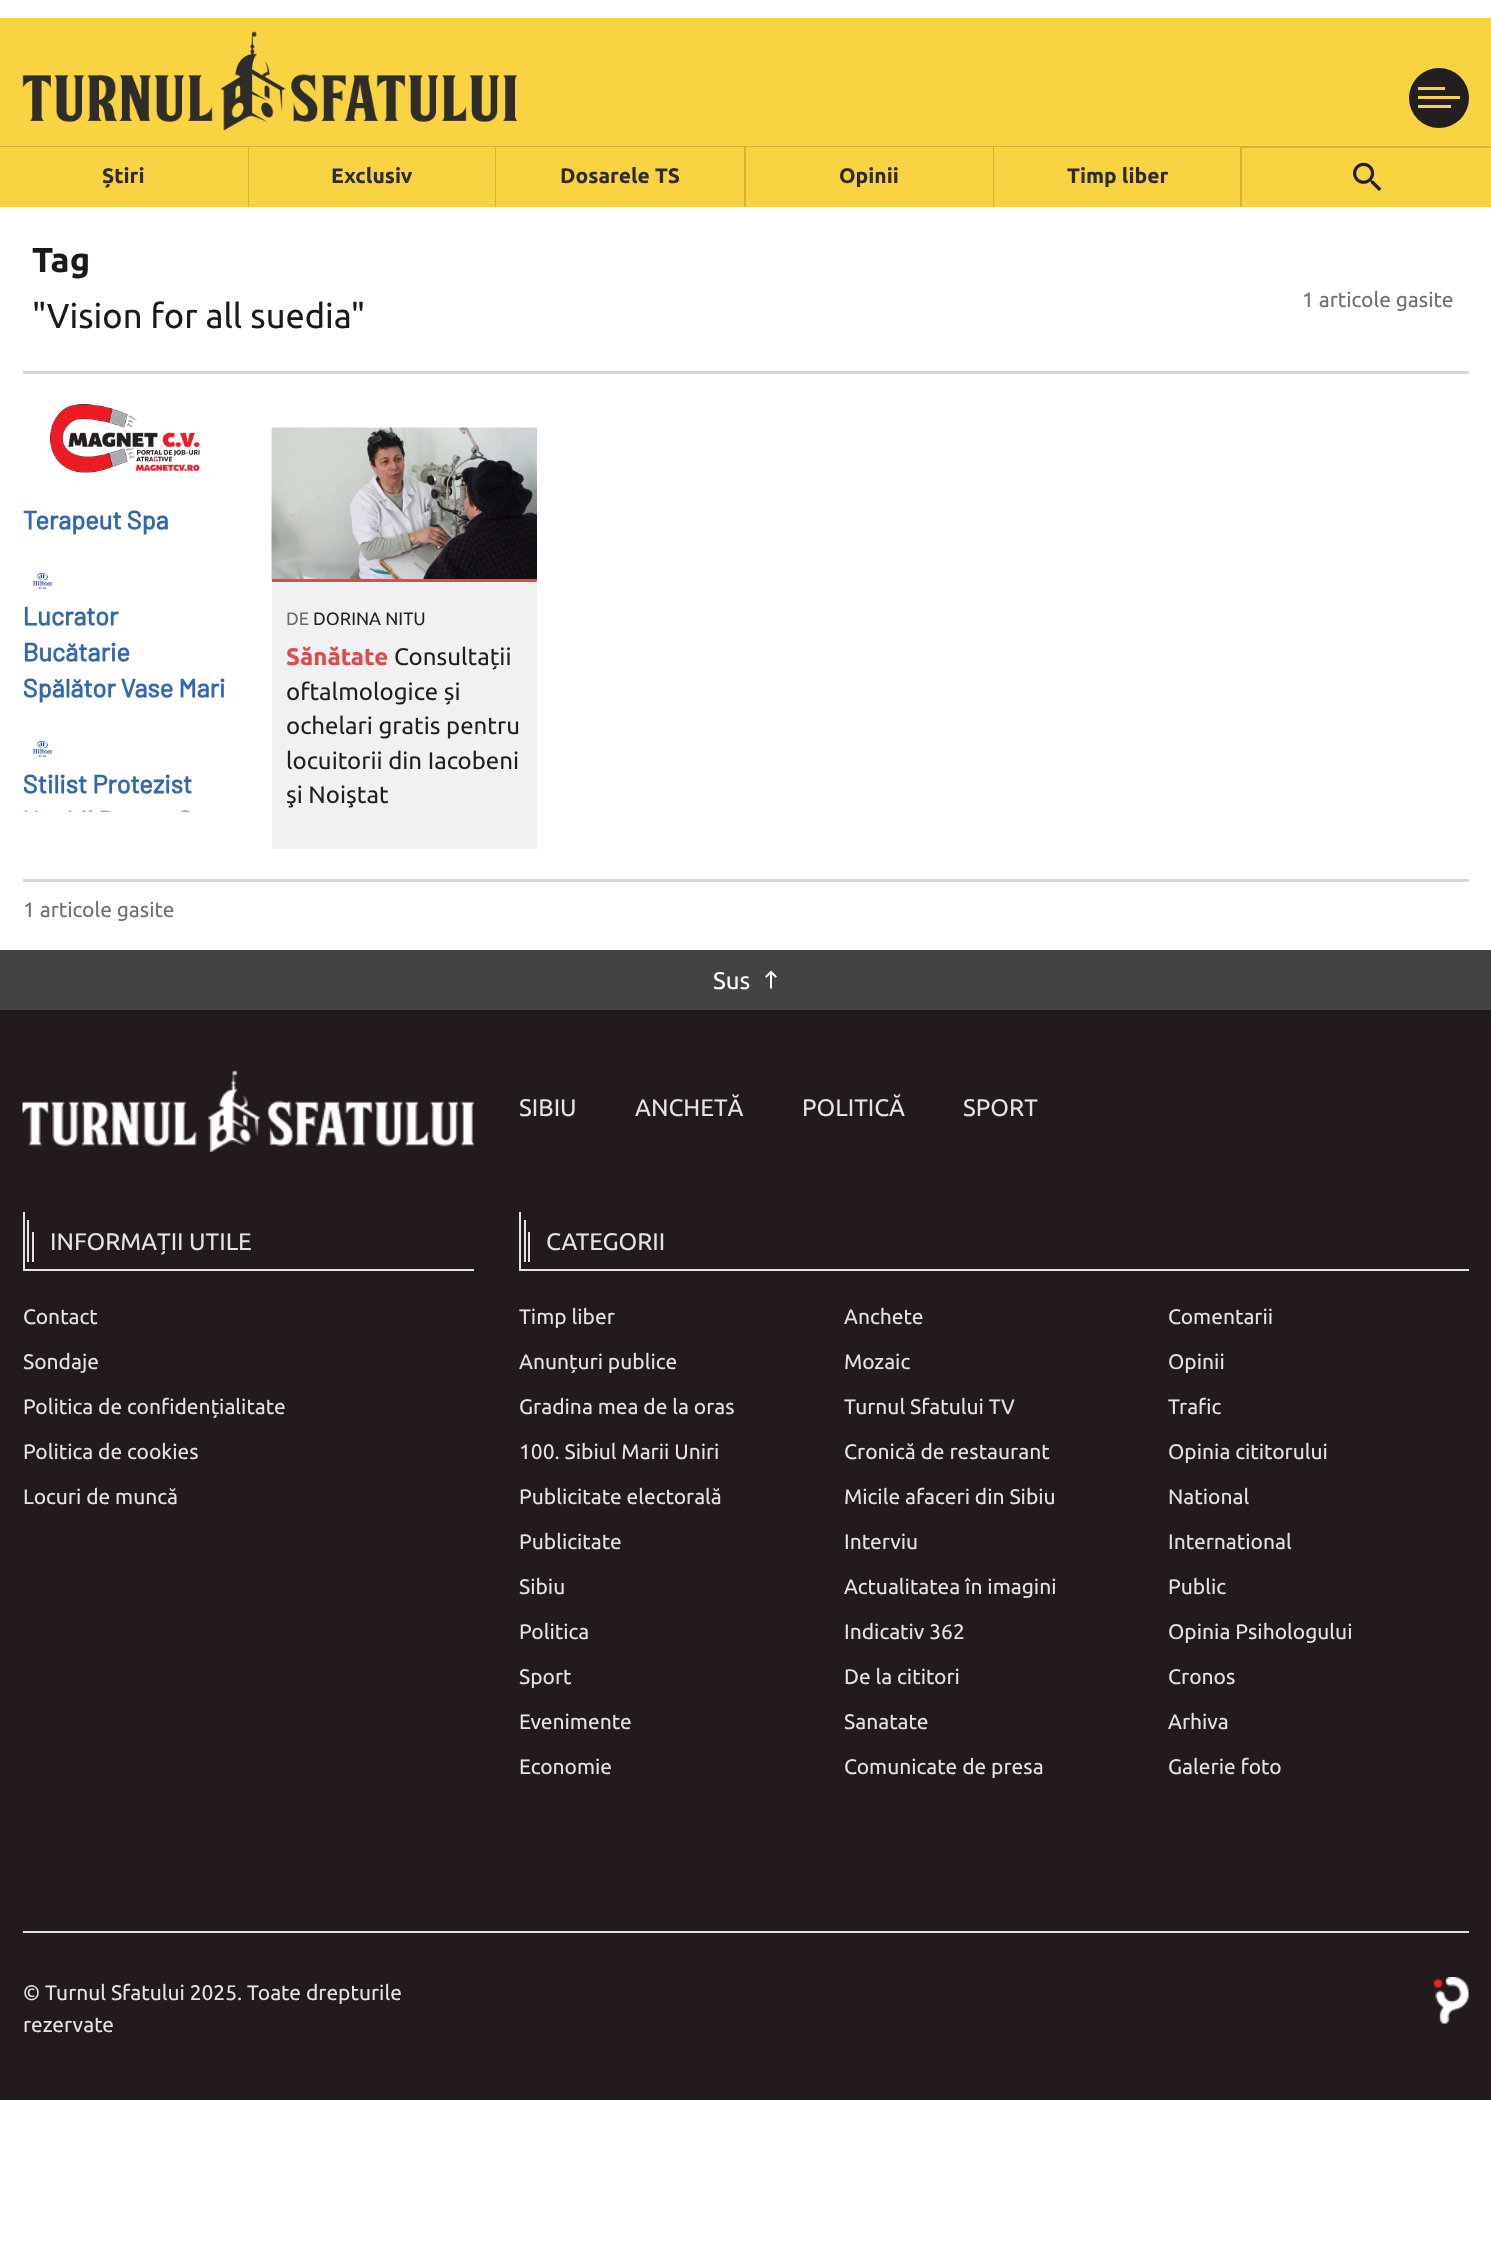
<svg xmlns="http://www.w3.org/2000/svg" width="1491" height="2263" viewBox="0 0 1491 2263">
  <rect width="100%" height="100%" fill="rgb(255,255,255)"/>
  <rect x="0" y="18" width="1491" height="189" fill="rgb(249,211,66)"/>
  <image x="22" y="30" width="496" height="101" href="pic1.png"/>
  <circle cx="1439" cy="98" r="30" fill="rgb(35,31,32)"/>
  <rect x="1418" y="96" width="42" height="3" fill="rgb(249,211,66)"/>
  <rect x="1418" y="87" width="27" height="3" fill="rgb(249,211,66)"/>
  <rect x="1418" y="105" width="33" height="3" fill="rgb(249,211,66)"/>
  <path d="M0 146H249L248 147H0Z" fill="rgb(212,179,56)"/>
  <path d="M249 146V207H248V147Z" fill="rgba(0,0,0,0.15)"/>
  <text x="102" y="183" font-family="Ubuntu" font-size="21" font-weight="bold" fill="rgb(46,45,42)">Știri</text>
  <path d="M249 146H496L495 147H249Z" fill="rgb(212,179,56)"/>
  <path d="M496 146V207H495V147Z" fill="rgba(0,0,0,0.15)"/>
  <text x="331" y="183" font-family="Ubuntu" font-size="21" font-weight="bold" fill="rgb(46,45,42)">Exclusiv</text>
  <path d="M496 146H746L744 147H496Z" fill="rgb(212,179,56)"/>
  <path d="M746 146V207H744V147Z" fill="rgba(0,0,0,0.15)"/>
  <text x="560" y="183" font-family="Ubuntu" font-size="21" font-weight="bold" fill="rgb(46,45,42)">Dosarele TS</text>
  <path d="M746 146H994L993 147H746Z" fill="rgb(212,179,56)"/>
  <path d="M994 146V207H993V147Z" fill="rgba(0,0,0,0.15)"/>
  <text x="839" y="183" font-family="Ubuntu" font-size="21" font-weight="bold" fill="rgb(46,45,42)">Opinii</text>
  <path d="M994 146H1242L1240 147H994Z" fill="rgb(212,179,56)"/>
  <path d="M1242 146V207H1240V147Z" fill="rgba(0,0,0,0.15)"/>
  <text x="1067" y="183" font-family="Ubuntu" font-size="21" font-weight="bold" fill="rgb(46,45,42)">Timp liber</text>
  <rect x="1242" y="146" width="249" height="2" fill="rgb(212,179,56)"/>
  <image x="1353" y="162" width="29" height="29" href="pic2.png"/>
  <text x="32" y="272" font-family="Ubuntu" font-size="34.5" font-weight="bold" fill="rgb(28,25,26)">Tag</text>
  <text x="32" y="328" font-family="Ubuntu" font-size="34.5" fill="rgb(28,25,26)">"Vision for all suedia"</text>
  <text x="1302" y="307" font-family="Ubuntu" font-size="21" fill="rgb(111,111,111)">1 articole gasite</text>
  <rect x="23" y="371" width="1446" height="3" fill="rgb(216,216,216)"/>
  <image x="23" y="404" width="202" height="408" href="pic3.png"/>
  <rect x="272" y="582" width="265" height="267" fill="rgb(241,241,241)"/>
  <image x="271" y="427" width="266" height="152" href="pic4.png"/>
  <image x="271" y="427" width="266" height="152" href="pic5.png"/>
  <rect x="272" y="579" width="265" height="3" fill="rgb(223,75,75)"/>
  <text x="286" y="625" font-family="Ubuntu" font-size="18" fill="rgb(108,108,105)">DE</text>
  <text x="313" y="625" font-family="Ubuntu" font-size="18" fill="rgb(35,31,32)">DORINA NITU</text>
  <text x="286" y="665" font-family="Ubuntu" font-size="24" font-weight="bold" fill="rgb(223,75,75)">Sănătate</text>
  <g font-family="Ubuntu" font-size="24" fill="rgb(35,31,32)">
    <text x="394" y="665">Consultații</text>
    <text>
      <tspan x="286" y="700">oftalmologice și</tspan>
      <tspan x="286" y="734">ochelari gratis pentru</tspan>
      <tspan x="286" y="769">locuitorii din Iacobeni</tspan>
      <tspan x="286" y="803">şi Noiştat</tspan>
    </text>
  </g>
  <rect x="23" y="879" width="1446" height="3" fill="rgb(216,216,216)"/>
  <text x="23" y="917" font-family="Ubuntu" font-size="21" fill="rgb(111,111,111)">1 articole gasite</text>
  <rect x="0" y="950" width="1491" height="60" fill="rgb(68,66,66)"/>
  <text x="713" y="989" font-family="Ubuntu" font-size="24" fill="rgb(255,255,255)">Sus</text>
  <image x="765" y="970" width="12" height="19" href="pic6.png"/>
  <rect x="0" y="1010" width="1491" height="1090" fill="rgb(34,26,28)"/>
  <image x="22" y="1070" width="452" height="82" href="pic7.png"/>
  <g font-family="Ubuntu" font-size="24" fill="rgb(227,227,227)">
    <text x="519" y="1116">SIBIU</text>
    <text x="635" y="1116">ANCHETĂ</text>
    <text x="802" y="1116">POLITICĂ</text>
    <text x="963" y="1116">SPORT</text>
  </g>
  <rect x="23" y="1269" width="451" height="2" fill="rgb(227,227,227)"/>
  <rect x="23" y="1212" width="2" height="59" fill="rgb(227,227,227)"/>
  <rect x="27" y="1220" width="2" height="42" fill="rgb(227,227,227)"/>
  <rect x="32" y="1232" width="2" height="30" fill="rgb(227,227,227)"/>
  <text x="50" y="1250" font-family="Ubuntu" font-size="24" fill="rgb(227,227,227)">INFORMAȚII UTILE</text>
  <g font-family="Ubuntu" font-size="21" fill="rgb(227,227,227)">
    <text x="23" y="1324">Contact</text>
    <text x="23" y="1369">Sondaje</text>
    <text x="23" y="1414">Politica de confidențialitate</text>
    <text x="23" y="1459">Politica de cookies</text>
    <text x="23" y="1504">Locuri de muncă</text>
  </g>
  <rect x="519" y="1269" width="950" height="2" fill="rgb(227,227,227)"/>
  <rect x="519" y="1212" width="2" height="59" fill="rgb(227,227,227)"/>
  <rect x="524" y="1220" width="2" height="42" fill="rgb(227,227,227)"/>
  <rect x="528" y="1232" width="2" height="30" fill="rgb(227,227,227)"/>
  <text x="546" y="1250" font-family="Ubuntu" font-size="24" fill="rgb(227,227,227)">CATEGORII</text>
  <g font-family="Ubuntu" font-size="21" fill="rgb(227,227,227)">
    <text x="519" y="1324">Timp liber</text>
    <text x="844" y="1324">Anchete</text>
    <text x="1168" y="1324">Comentarii</text>
    <text x="519" y="1369">Anunțuri publice</text>
    <text x="844" y="1369">Mozaic</text>
    <text x="1168" y="1369">Opinii</text>
    <text x="519" y="1414">Gradina mea de la oras</text>
    <text x="844" y="1414">Turnul Sfatului TV</text>
    <text x="1168" y="1414">Trafic</text>
    <text x="519" y="1459">100. Sibiul Marii Uniri</text>
    <text x="844" y="1459">Cronică de restaurant</text>
    <text x="1168" y="1459">Opinia cititorului</text>
    <text x="519" y="1504">Publicitate electorală</text>
    <text x="844" y="1504">Micile afaceri din Sibiu</text>
    <text x="1168" y="1504">National</text>
    <text x="519" y="1549">Publicitate</text>
    <text x="844" y="1549">Interviu</text>
    <text x="1168" y="1549">International</text>
    <text x="519" y="1594">Sibiu</text>
    <text x="844" y="1594">Actualitatea în imagini</text>
    <text x="1168" y="1594">Public</text>
    <text x="519" y="1639">Politica</text>
    <text x="844" y="1639">Indicativ 362</text>
    <text x="1168" y="1639">Opinia Psihologului</text>
    <text x="519" y="1684">Sport</text>
    <text x="844" y="1684">De la cititori</text>
    <text x="1168" y="1684">Cronos</text>
    <text x="519" y="1729">Evenimente</text>
    <text x="844" y="1729">Sanatate</text>
    <text x="1168" y="1729">Arhiva</text>
    <text x="519" y="1774">Economie</text>
    <text x="844" y="1774">Comunicate de presa</text>
    <text x="1168" y="1774">Galerie foto</text>
  </g>
  <rect x="23" y="1931" width="1446" height="2" fill="rgb(227,227,227)"/>
  <g font-family="Ubuntu" font-size="21" fill="rgb(227,227,227)">
    <text>
      <tspan x="23" y="2000">© Turnul Sfatului 2025. Toate drepturile</tspan>
      <tspan x="23" y="2032">rezervate</tspan>
    </text>
  </g>
  <image x="1434" y="1977" width="35" height="47" href="pic8.png"/>
</svg>
